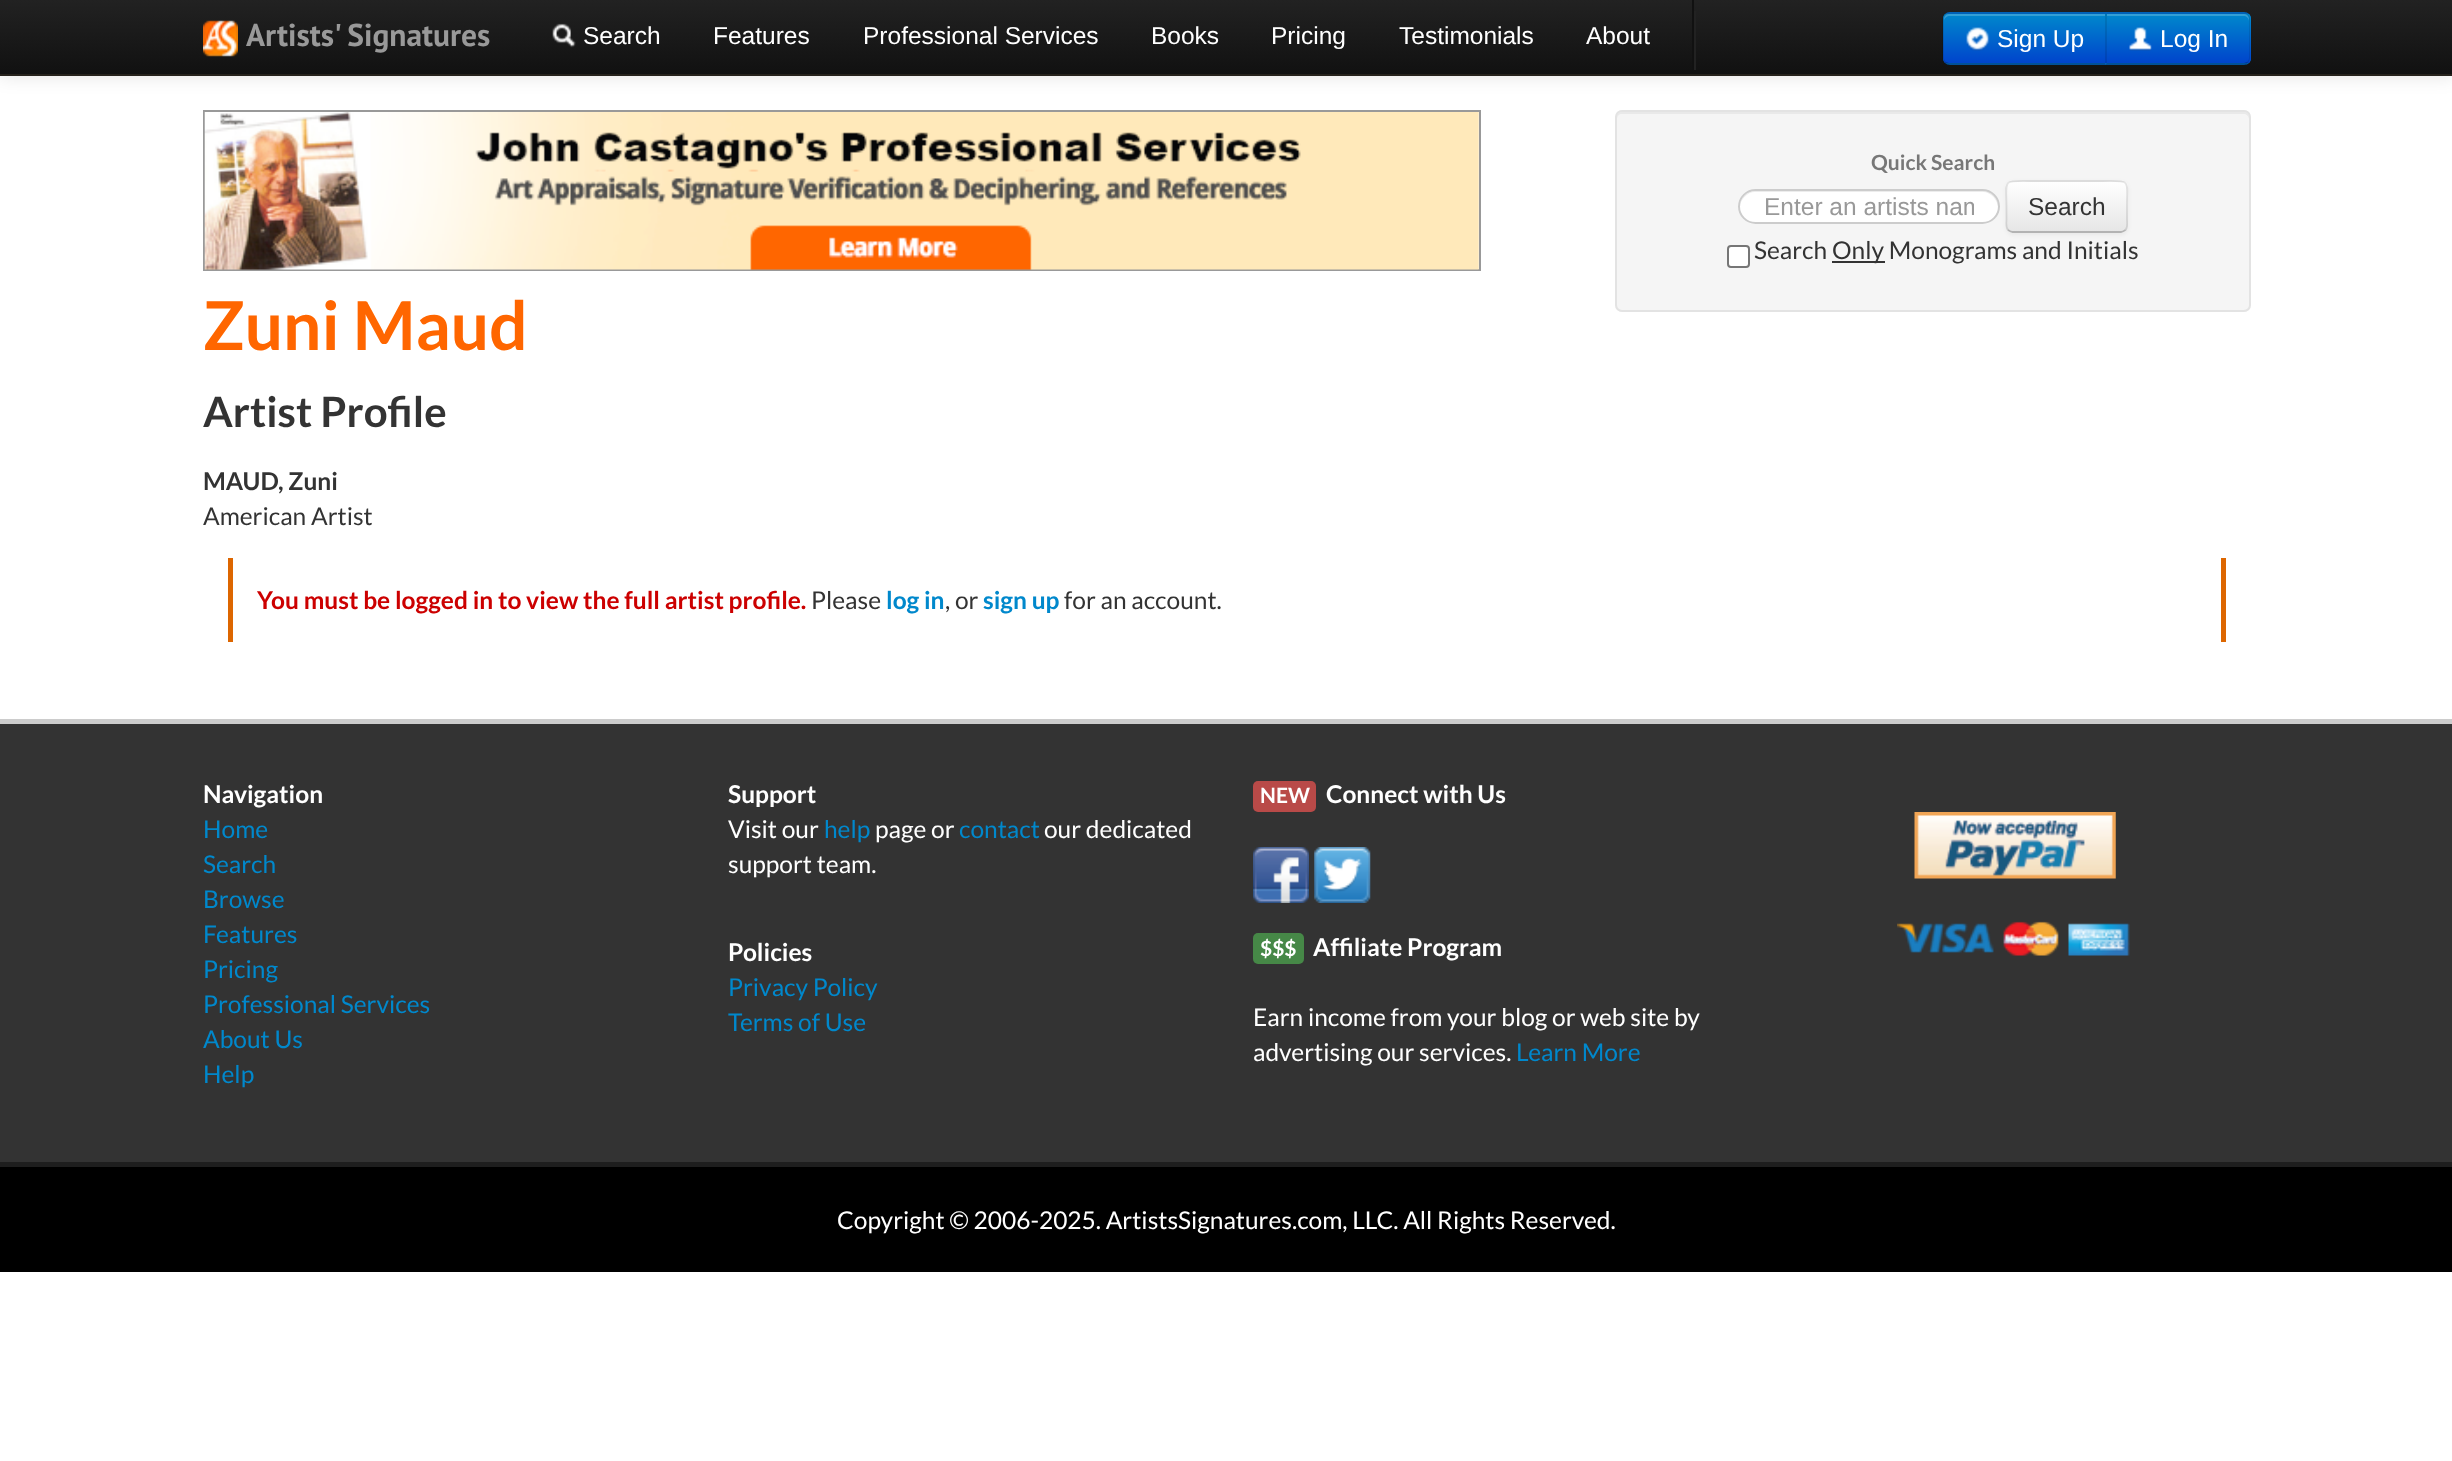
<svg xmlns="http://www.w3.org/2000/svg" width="2452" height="1461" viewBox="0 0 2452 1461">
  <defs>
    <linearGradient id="g1" gradientUnits="userSpaceOnUse" x1="1227" y1="0" x2="1227" y2="74"><stop offset="0" stop-color="rgb(34,34,34)"/><stop offset="1" stop-color="rgb(17,17,17)"/></linearGradient>
    <clipPath id="clip1"><path d="M1950 12H2107V65H1950C1946 65 1943 62 1943 58V19C1943 15 1946 12 1950 12Z"/></clipPath>
    <linearGradient id="g2" gradientUnits="userSpaceOnUse" x1="2025" y1="14" x2="2025" y2="63"><stop offset="0" stop-color="rgb(0,136,204)"/><stop offset="1" stop-color="rgb(0,68,204)"/></linearGradient>
    <clipPath id="clip2"><path d="M2105 12H2244C2248 12 2251 15 2251 19V58C2251 62 2248 65 2244 65H2105Z"/></clipPath>
    <linearGradient id="g3" gradientUnits="userSpaceOnUse" x1="2178" y1="14" x2="2178" y2="63"><stop offset="0" stop-color="rgb(0,136,204)"/><stop offset="1" stop-color="rgb(0,68,204)"/></linearGradient>
    <clipPath id="clip3"><rect x="1764" y="193" width="210" height="28"/></clipPath>
    <clipPath id="clip4"><rect x="2006" y="180" width="122" height="53" rx="7"/></clipPath>
    <linearGradient id="g4" gradientUnits="userSpaceOnUse" x1="2067" y1="182" x2="2067" y2="231"><stop offset="0" stop-color="rgb(255,255,255)"/><stop offset="1" stop-color="rgb(230,230,230)"/></linearGradient>
  </defs>
  <rect width="100%" height="100%" fill="rgb(255,255,255)"/>
  <rect x="0" y="2" width="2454" height="75" fill="rgba(0,0,0,0.1)" filter="blur(9px)"/>
  <rect x="0" y="0" width="2452" height="74" fill="url(#g1)"/>
  <rect x="0" y="74" width="2452" height="2" fill="rgb(38,34,28)"/>
  <image x="203" y="20" width="35" height="37" href="pic1.png"/>
  <text x="246" y="46" font-family="PT Sans" font-size="31.5" font-weight="bold" fill="rgb(153,153,153)">Artists' Signatures</text>
  <image x="552" y="23" width="24" height="25" href="pic2.png"/>
  <g font-family="Liberation Sans" font-size="24.5" fill="rgb(255,255,255)">
    <text x="583" y="44">Search</text>
    <text x="713" y="44">Features</text>
    <text x="863" y="44">Professional Services</text>
    <text x="1151" y="44">Books</text>
    <text x="1271" y="44">Pricing</text>
    <text x="1399" y="44">Testimonials</text>
    <text x="1586" y="44">About</text>
  </g>
  <rect x="1694" y="11" width="2" height="59" fill="rgb(34,34,34)"/>
  <rect x="1692" y="0" width="2" height="70" fill="rgb(17,17,17)"/>
  <path d="M1950 12H2107V65H1950C1946 65 1943 62 1943 58V19C1943 15 1946 12 1950 12Z" fill="rgb(0,109,204)"/>
  <g clip-path="url(#clip1)">
    <rect x="1943" y="14" width="162" height="49" fill="url(#g2)"/>
  </g>
  <path d="M1950 16H2105V14H1949C1946 14 1944 16 1944 19V21C1944 18 1947 16 1950 16Z" fill="rgba(255,255,255,0.2)"/>
  <path d="M1950 14C1948 14 1947 15 1946 15L1944 14L1948 12H2107L2105 14Z" fill="rgba(0,0,0,0.1)"/>
  <path d="M2107 65H1948L1944 63L1946 62L1949 63H2105Z" fill="rgba(0,0,0,0.25)"/>
  <path d="M1942 17L1944 14L1946 15C1945 16 1944 18 1944 19V58C1944 59 1945 61 1946 62L1944 63L1942 60Z" fill="rgba(0,0,0,0.1)"/>
  <image x="1966" y="27" width="24" height="24" href="pic3.png"/>
  <text x="1997" y="47" font-family="Liberation Sans" font-size="24.5" fill="rgb(255,255,255)">Sign Up</text>
  <path d="M2105 12H2244C2248 12 2251 15 2251 19V58C2251 62 2248 65 2244 65H2105Z" fill="rgb(0,109,204)"/>
  <g clip-path="url(#clip2)">
    <rect x="2105" y="14" width="146" height="49" fill="url(#g3)"/>
  </g>
  <path d="M2107 16H2244C2246 16 2249 18 2249 21V19C2249 16 2247 14 2244 14H2107Z" fill="rgba(255,255,255,0.2)"/>
  <path d="M2107 14L2105 12H2246L2248 14L2247 15L2244 14Z" fill="rgba(0,0,0,0.1)"/>
  <path d="M2248 14C2249 16 2250 17 2250 19V58C2250 60 2249 61 2248 63L2247 62C2248 61 2249 59 2249 58V19C2249 18 2248 16 2247 15Z" fill="rgba(0,0,0,0.1)"/>
  <path d="M2248 63L2246 65H2105L2107 63H2244L2247 62Z" fill="rgba(0,0,0,0.25)"/>
  <path d="M2105 65L2107 63V14L2105 12Z" fill="rgba(0,0,0,0.1)"/>
  <image x="2129" y="27" width="23" height="24" href="pic4.png"/>
  <text x="2160" y="47" font-family="Liberation Sans" font-size="24.5" fill="rgb(255,255,255)">Log In</text>
  <rect x="204" y="111" width="1276" height="159" fill="none" stroke="rgb(153,153,153)" stroke-width="2"/>
  <image x="204" y="112" width="1275" height="158" href="pic5.png"/>
  <rect x="1615" y="110" width="636" height="202" rx="7" fill="rgb(245,245,245)"/>
  <path d="M1622 114H2244C2246 114 2249 116 2249 119V117C2249 114 2247 112 2244 112H1622C1619 112 1617 114 1617 117V119C1617 116 1619 114 1622 114Z" fill="rgb(233,233,233)"/>
  <rect x="1616" y="111" width="634" height="200" rx="6" fill="none" stroke="rgb(227,227,227)" stroke-width="2"/>
  <text x="1871" y="170" font-family="Lato" font-size="21" font-weight="bold" fill="rgb(119,119,119)">Quick Search</text>
  <rect x="1738" y="189" width="262" height="35" rx="17.5" fill="rgb(255,255,255)"/>
  <path d="M1755 192H1983C1991 192 1998 200 1998 208C1998 211 1997 213 1997 215C1998 213 1999 210 1999 206C1999 198 1992 191 1984 191H1756C1747 191 1740 198 1740 206V207C1740 200 1747 192 1755 192Z" fill="rgb(236,236,236)"/>
  <rect x="1739" y="190" width="260" height="33" rx="16.5" fill="none" stroke="rgb(204,204,204)" stroke-width="2"/>
  <g clip-path="url(#clip3)">
    <text x="1764" y="215" font-family="Liberation Sans" font-size="24.5" fill="rgb(153,153,153)">Enter an artists nam</text>
  </g>
  <rect x="2006" y="182" width="122" height="53" rx="7" fill="rgba(0,0,0,0.05)" filter="blur(2px)"/>
  <rect x="2006" y="180" width="122" height="53" rx="7" fill="rgb(245,245,245)"/>
  <g clip-path="url(#clip4)">
    <rect x="2006" y="182" width="122" height="49" fill="url(#g4)"/>
  </g>
  <path d="M2125.5 230C2124 231 2122.5 232 2121 232H2012.5C2011 232 2009.5 231 2008 230" fill="none" stroke="rgb(179,179,179)" stroke-width="1.8"/>
  <path d="M2008 230C2005.5 227.5 2006.5 222.5 2006.5 219.5V206.5C2006.5 178.5 2002 181 2030.5 181H2103C2131.5 181 2127 178.5 2127 206.5V219.5C2127 222.5 2128 227.5 2125.5 230" fill="none" stroke="rgba(0,0,0,0.1)" stroke-width="1.8"/>
  <text x="2028" y="215" font-family="Liberation Sans" font-size="24.5" fill="rgb(51,51,51)">Search</text>
  <rect x="1728" y="246" width="21" height="21" rx="3" fill="rgb(255,255,255)" stroke="rgb(118,118,118)" stroke-width="2"/>
  <text x="1754" y="259" font-family="Lato" font-size="24.5" fill="rgb(51,51,51)">Search</text>
  <rect x="1832" y="261" width="53" height="2" fill="rgb(51,51,51)"/>
  <text x="1832" y="259" font-family="Lato" font-size="24.5" fill="rgb(51,51,51)">Only Monograms and Initials</text>
  <text x="203" y="350" font-family="Lato" font-size="67.5" font-weight="bold" fill="rgb(255,102,0)">Zuni Maud</text>
  <text x="203" y="427" font-family="Lato" font-size="42" font-weight="bold" fill="rgb(51,51,51)">Artist Profile</text>
  <text x="203" y="490" font-family="Lato" font-size="24.5" font-weight="bold" fill="rgb(51,51,51)">MAUD, Zuni</text>
  <text x="203" y="525" font-family="Lato" font-size="24.5" fill="rgb(51,51,51)">American Artist</text>
  <rect x="2221" y="558" width="5" height="84" fill="rgb(221,102,0)"/>
  <rect x="228" y="558" width="5" height="84" fill="rgb(221,102,0)"/>
  <text x="257" y="609" font-family="Lato" font-size="24.5" font-weight="bold" fill="rgb(204,0,0)">You must be logged in to view the full artist profile.</text>
  <text x="811" y="609" font-family="Lato" font-size="24.5" fill="rgb(51,51,51)">Please</text>
  <text x="886" y="609" font-family="Lato" font-size="24.5" font-weight="bold" fill="rgb(0,136,204)">log in</text>
  <text x="945" y="609" font-family="Lato" font-size="24.5" fill="rgb(51,51,51)">, or</text>
  <text x="983" y="609" font-family="Lato" font-size="24.5" font-weight="bold" fill="rgb(0,136,204)">sign up</text>
  <text x="1064" y="609" font-family="Lato" font-size="24.5" fill="rgb(51,51,51)">for an account.</text>
  <rect x="0" y="724" width="2452" height="438" fill="rgb(51,51,51)"/>
  <rect x="0" y="719" width="2452" height="5" fill="rgb(204,204,204)"/>
  <rect x="0" y="1162" width="2452" height="5" fill="rgb(30,30,30)"/>
  <text x="203" y="803" font-family="Lato" font-size="24.5" font-weight="bold" fill="rgb(255,255,255)">Navigation</text>
  <g font-family="Lato" font-size="24.5" fill="rgb(0,136,204)">
    <text>
      <tspan x="203" y="838">Home</tspan>
      <tspan x="203" y="873">Search</tspan>
      <tspan x="203" y="908">Browse</tspan>
      <tspan x="203" y="943">Features</tspan>
      <tspan x="203" y="978">Pricing</tspan>
      <tspan x="203" y="1013">Professional Services</tspan>
      <tspan x="203" y="1048">About Us</tspan>
      <tspan x="203" y="1083">Help</tspan>
    </text>
  </g>
  <text x="728" y="803" font-family="Lato" font-size="24.5" font-weight="bold" fill="rgb(255,255,255)">Support</text>
  <text x="728" y="838" font-family="Lato" font-size="24.5" fill="rgb(255,255,255)">Visit our</text>
  <text x="824" y="838" font-family="Lato" font-size="24.5" fill="rgb(0,136,204)">help</text>
  <text x="875" y="838" font-family="Lato" font-size="24.5" fill="rgb(255,255,255)">page or</text>
  <text x="959" y="838" font-family="Lato" font-size="24.5" fill="rgb(0,136,204)">contact</text>
  <g font-family="Lato" font-size="24.5" fill="rgb(255,255,255)">
    <text x="1044" y="838">our dedicated</text>
    <text x="728" y="873">support team.</text>
  </g>
  <text x="728" y="961" font-family="Lato" font-size="24.5" font-weight="bold" fill="rgb(255,255,255)">Policies</text>
  <g font-family="Lato" font-size="24.5" fill="rgb(0,136,204)">
    <text>
      <tspan x="728" y="996">Privacy Policy</tspan>
      <tspan x="728" y="1031">Terms of Use</tspan>
    </text>
  </g>
  <rect x="1253" y="781" width="63" height="31" rx="5" fill="rgb(185,74,72)"/>
  <text x="1260" y="803" font-family="Lato" font-size="21" font-weight="bold" fill="rgb(255,255,255)">NEW</text>
  <text x="1326" y="803" font-family="Lato" font-size="24.5" font-weight="bold" fill="rgb(255,255,255)">Connect with Us</text>
  <image x="1253" y="847" width="56" height="56" href="pic6.png"/>
  <image x="1314" y="847" width="57" height="56" href="pic7.png"/>
  <rect x="1253" y="933" width="51" height="31" rx="5" fill="rgb(70,136,71)"/>
  <text x="1260" y="956" font-family="Lato" font-size="21" font-weight="bold" fill="rgb(255,255,255)">$$$</text>
  <text x="1313" y="956" font-family="Lato" font-size="24.5" font-weight="bold" fill="rgb(255,255,255)">Affiliate Program</text>
  <g font-family="Lato" font-size="24.5" fill="rgb(255,255,255)">
    <text>
      <tspan x="1253" y="1026">Earn income from your blog or web site by</tspan>
      <tspan x="1253" y="1061">advertising our services.</tspan>
    </text>
  </g>
  <text x="1516" y="1061" font-family="Lato" font-size="24.5" fill="rgb(0,136,204)">Learn More</text>
  <image x="1914" y="812" width="202" height="67" href="pic8.png"/>
  <image x="1897" y="921" width="233" height="35" href="pic9.png"/>
  <rect x="0" y="1167" width="2452" height="105" fill="rgb(0,0,0)"/>
  <text x="837" y="1229" font-family="Lato" font-size="24.5" fill="rgb(255,255,255)">Copyright © 2006-2025. ArtistsSignatures.com, LLC. All Rights Reserved.</text>
</svg>
